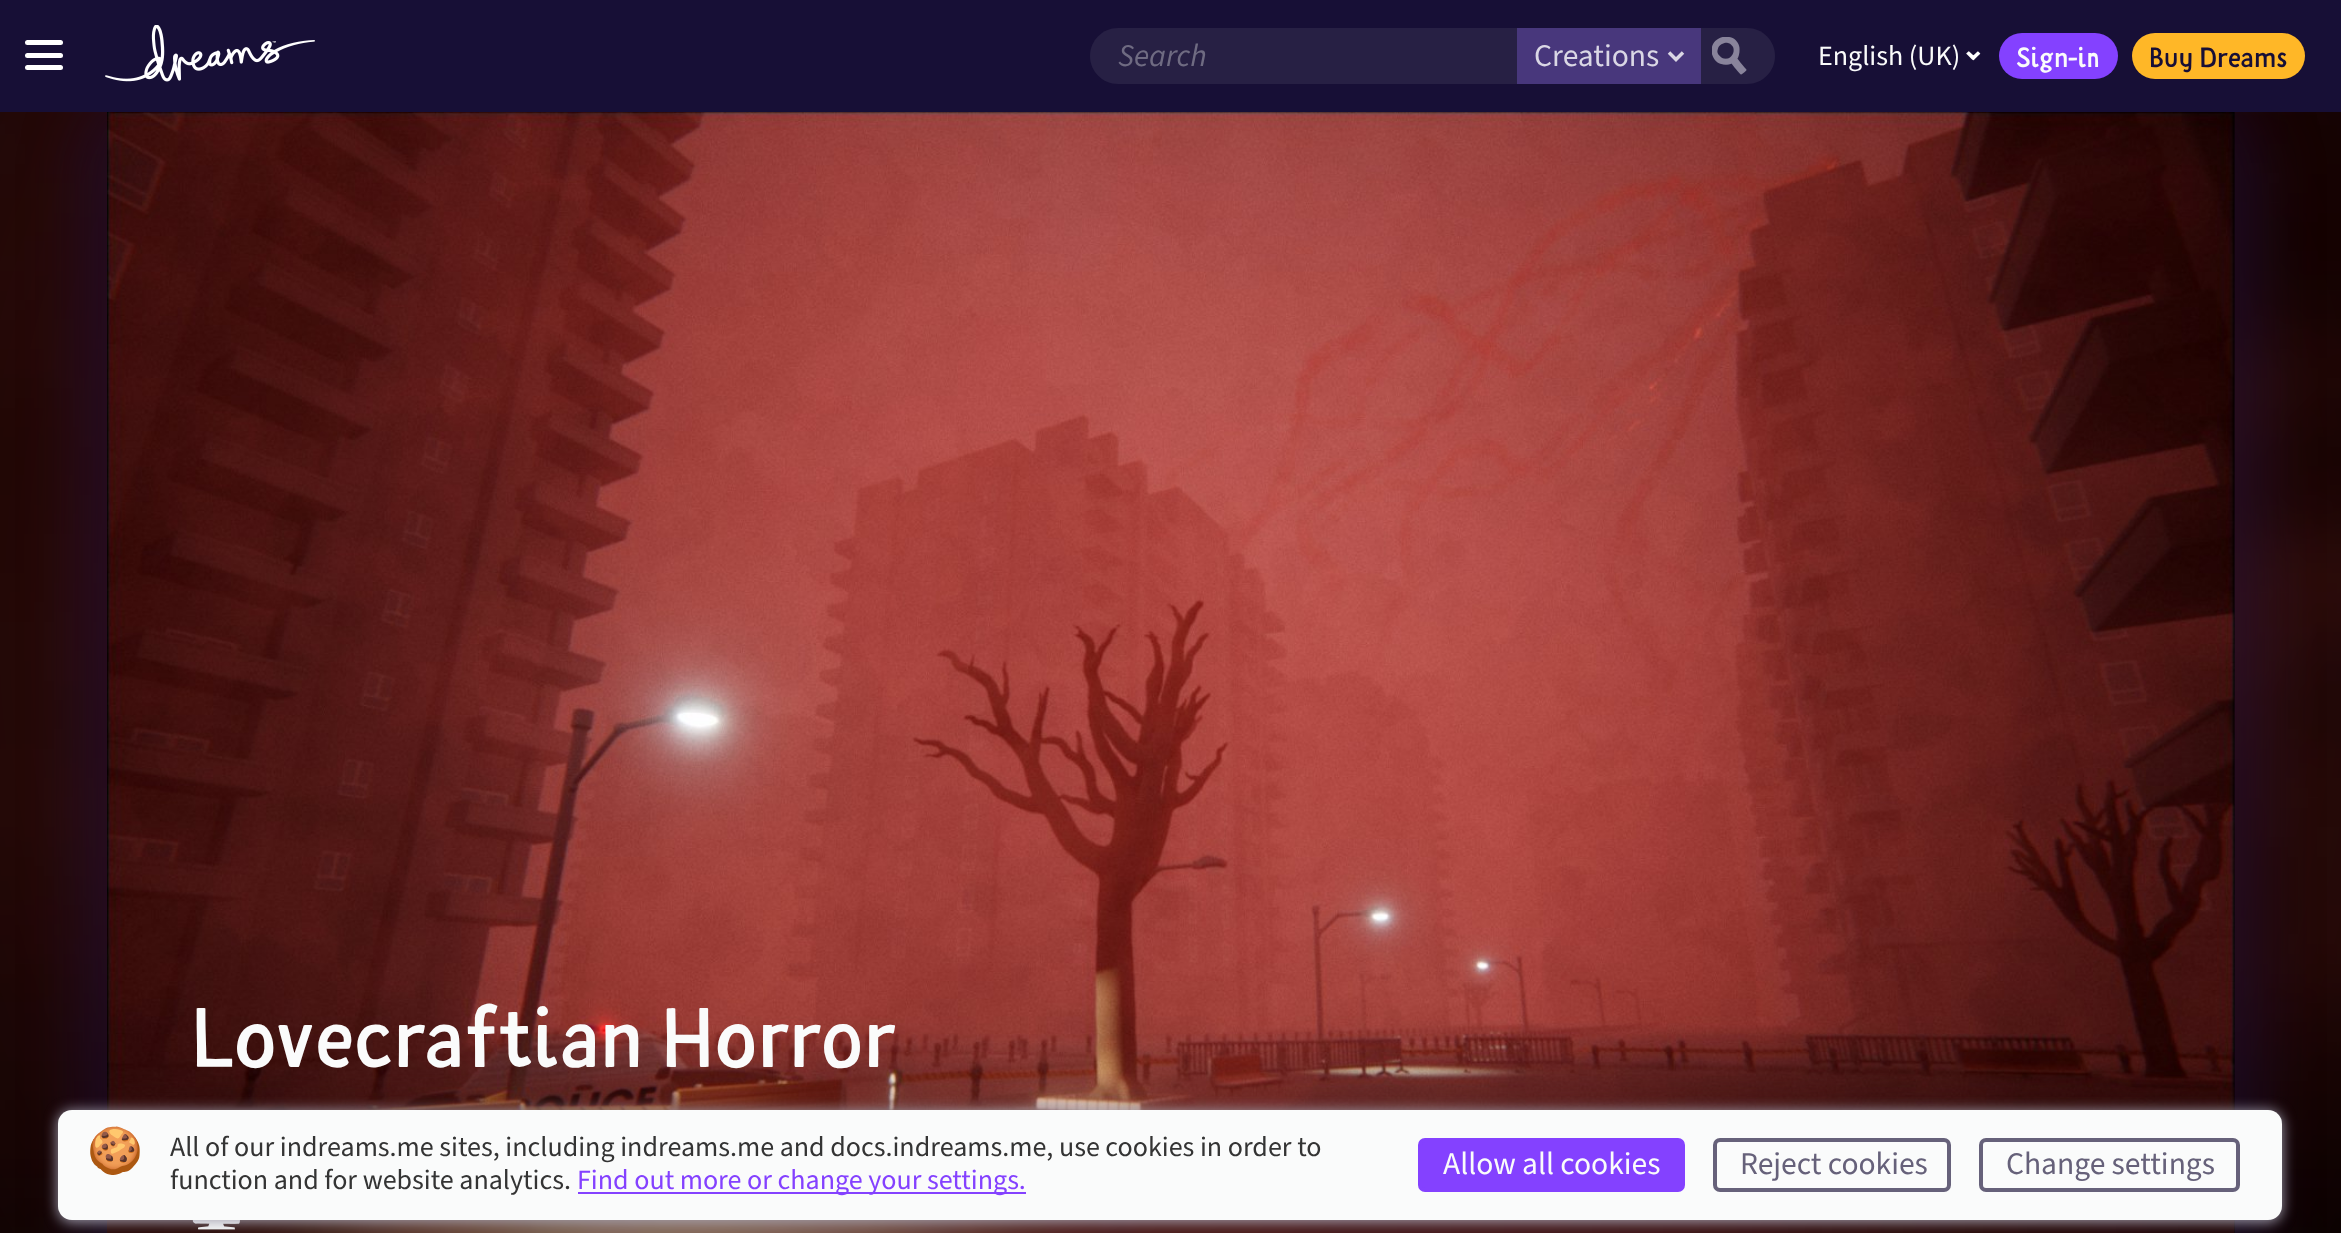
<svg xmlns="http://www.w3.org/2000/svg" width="2341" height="1233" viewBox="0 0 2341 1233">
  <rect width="100%" height="100%" fill="rgb(255,255,255)"/>
  <image x="0" y="112" width="2341" height="1121" href="pic4.png"/>
  <rect x="79" y="84" width="2184" height="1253" rx="84" fill="rgba(28,14,56,0.5)" filter="blur(28px)"/>
  <rect x="0" y="0" width="2341" height="112" fill="rgb(23,15,54)"/>
  <rect x="25" y="40" width="38" height="5" rx="2.5" fill="rgb(255,255,255)"/>
  <rect x="25" y="53" width="38" height="5" rx="2.5" fill="rgb(255,255,255)"/>
  <rect x="25" y="65" width="38" height="5" rx="2.5" fill="rgb(255,255,255)"/>
  <image x="105" y="25" width="210" height="57" href="pic1.png"/>
  <path d="M1118 28H1517V84H1118C1102.5 84 1090 71.5 1090 56C1090 40.5 1102.5 28 1118 28Z" fill="rgb(39,32,68)"/>
  <text x="1118" y="66" font-family="Source Sans Pro" font-size="31.5" font-style="italic" fill="rgb(111,107,130)">Search</text>
  <rect x="1517" y="28" width="184" height="56" fill="rgb(72,55,124)"/>
  <path d="M1669 52.5L1676 59.5L1683 52.5" fill="none" stroke="rgb(218,215,229)" stroke-width="3.5"/>
  <text x="1534" y="66" font-family="Source Sans Pro" font-size="31.5" fill="rgb(218,215,229)">Creations</text>
  <path d="M1701 28H1747C1762.5 28 1775 40.5 1775 56C1775 71.5 1762.5 84 1747 84H1701Z" fill="rgb(39,32,68)"/>
  <image x="1712" y="37" width="35" height="38" href="pic2.png"/>
  <text x="1818" y="65" font-family="Source Sans Pro" font-size="28" fill="rgb(250,251,251)">English (UK)</text>
  <image x="1966" y="51" width="15" height="10" href="pic3.png"/>
  <rect x="1999" y="33" width="119" height="46" rx="23" fill="rgb(132,65,255)"/>
  <text x="2016" y="67" font-family="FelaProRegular" font-size="28" fill="rgb(250,251,251)">Sign-in</text>
  <rect x="2132" y="33" width="173" height="46" rx="23" fill="rgb(255,183,39)"/>
  <text x="2149" y="67" font-family="FelaProRegular" font-size="28" fill="rgb(23,15,54)">Buy Dreams</text>
  <image x="107" y="112" width="2128" height="1121" href="pic5.png"/>
  <image x="107" y="1074" width="2128" height="159" href="pic6.png"/>
  <text x="191" y="1067" font-family="FelaProRegular" font-size="84" fill="rgb(250,251,251)">Lovecraftian Horror</text>
  <image x="192" y="1220" width="48" height="10" href="pic7.png"/>
  <rect x="58" y="1111" width="2224" height="111" rx="14" fill="rgb(164,161,176)" filter="blur(7px)"/>
  <rect x="58" y="1110" width="2224" height="110" rx="14" fill="rgb(250,251,251)"/>
  <text x="87" y="1166" font-family="Noto Color Emoji" font-size="45" fill="rgb(52,52,52)">🍪</text>
  <g font-family="Source Sans Pro" font-size="28" fill="rgb(52,52,52)">
    <text>
      <tspan x="170" y="1156">All of our indreams.me sites, including indreams.me and docs.indreams.me, use cookies in order to</tspan>
      <tspan x="170" y="1189">function and for website analytics.</tspan>
    </text>
  </g>
  <rect x="578" y="1192" width="448" height="2" fill="rgb(132,65,255)"/>
  <text x="577" y="1189" font-family="Source Sans Pro" font-size="28" fill="rgb(132,65,255)">Find out more or change your settings.</text>
  <rect x="1420" y="1140" width="263" height="50" rx="5" fill="rgb(132,65,255)" stroke="rgb(132,65,255)" stroke-width="4"/>
  <text x="1443" y="1174" font-family="Source Sans Pro" font-size="31.5" fill="rgb(250,251,251)">Allow all cookies</text>
  <rect x="1715" y="1140" width="234" height="50" rx="5" fill="none" stroke="rgb(102,97,122)" stroke-width="4"/>
  <text x="1740" y="1174" font-family="Source Sans Pro" font-size="31.5" fill="rgb(102,97,122)">Reject cookies</text>
  <rect x="1981" y="1140" width="257" height="50" rx="5" fill="none" stroke="rgb(102,97,122)" stroke-width="4"/>
  <text x="2006" y="1174" font-family="Source Sans Pro" font-size="31.5" fill="rgb(102,97,122)">Change settings</text>
</svg>
